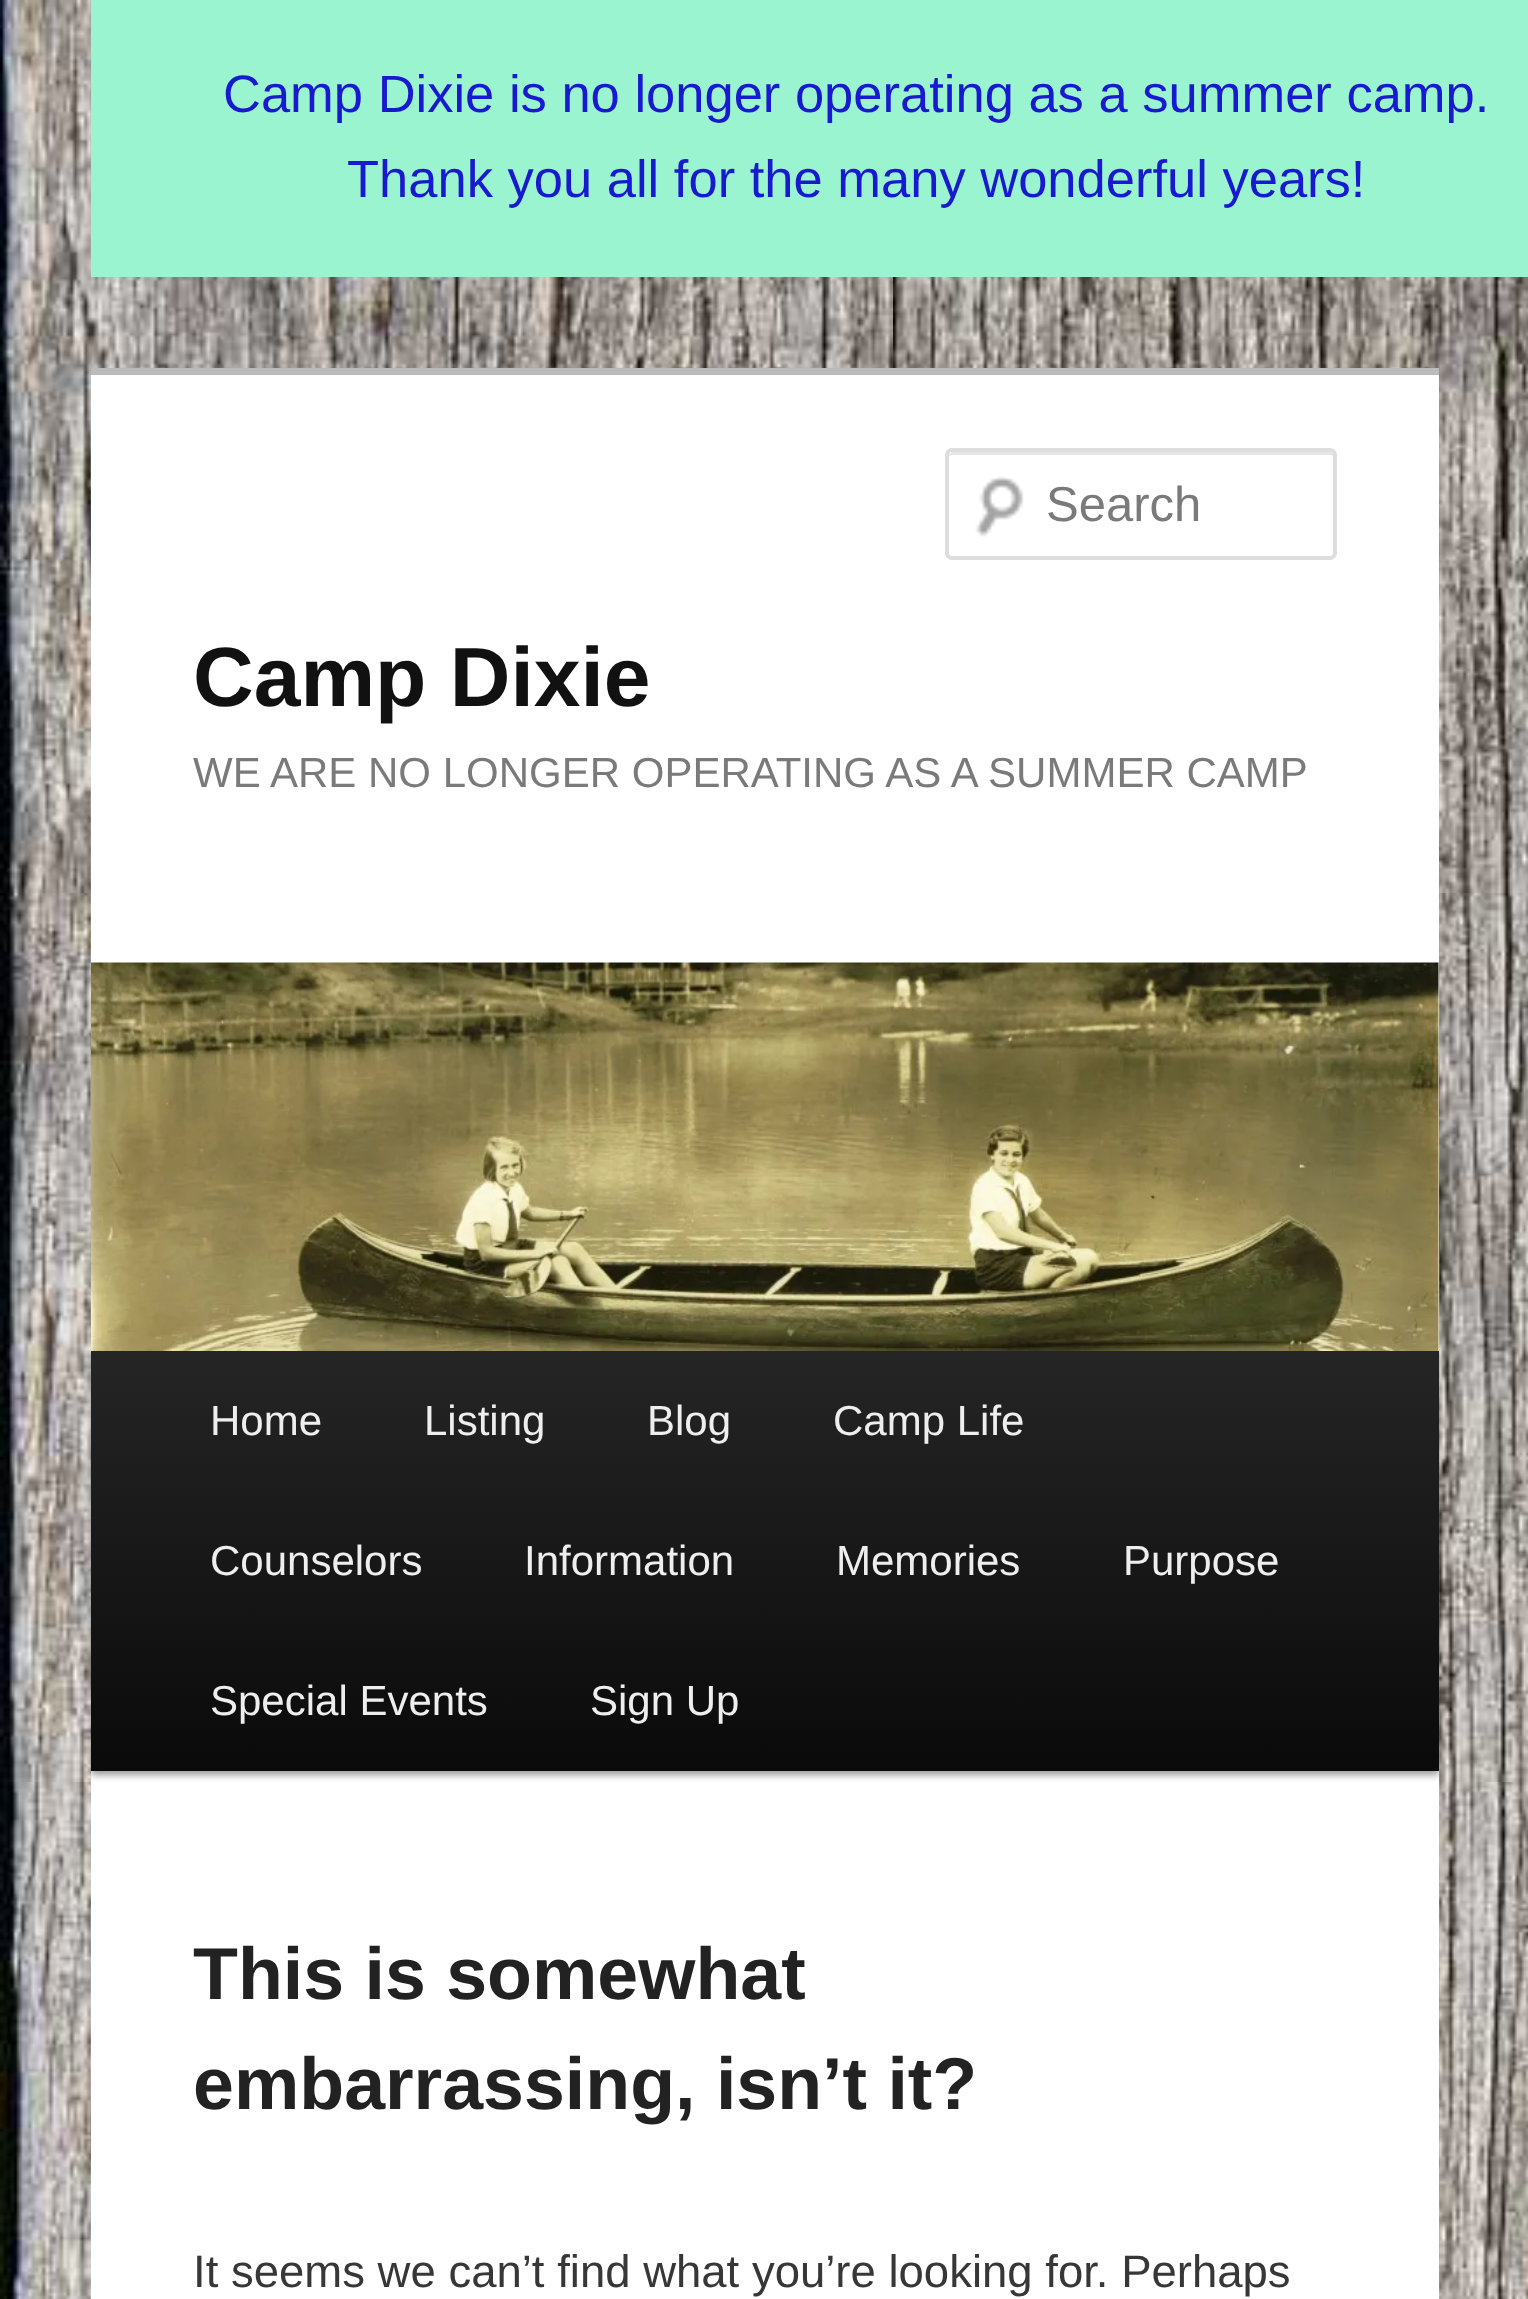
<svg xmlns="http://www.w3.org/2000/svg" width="1528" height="2299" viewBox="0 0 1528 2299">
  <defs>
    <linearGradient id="g1" gradientUnits="userSpaceOnUse" x1="765" y1="1351" x2="765" y2="1771"><stop offset="0" stop-color="rgb(37,37,37)"/><stop offset="1" stop-color="rgb(10,10,10)"/></linearGradient>
  </defs>
  <rect width="100%" height="100%" fill="rgb(255,255,255)"/>
  <image x="0" y="0" width="1528" height="2299" href="pic1.png"/>
  <rect x="91" y="0" width="1437" height="277" fill="rgb(154,244,207)"/>
  <g font-family="Liberation Sans" font-size="52.5" fill="rgb(25,25,207)">
    <text x="223" y="112">Camp Dixie is no longer operating as a summer camp.</text>
    <text x="347" y="197">Thank you all for the many wonderful years!</text>
  </g>
  <rect x="91" y="375" width="1348" height="1924" fill="rgb(255,255,255)"/>
  <rect x="91" y="368" width="1348" height="7" fill="rgb(187,187,187)"/>
  <image x="975" y="476" width="49" height="61" href="pic2.png"/>
  <path d="M952 455H1330C1332 455 1334 457 1334 458V456C1334 454 1332 452 1330 452H953C951 452 949 454 949 456Z" fill="rgb(230,230,230)"/>
  <rect x="947" y="450" width="388" height="108" rx="5" fill="none" stroke="rgb(221,221,221)" stroke-width="4"/>
  <text x="1046" y="521" font-family="Liberation Sans" font-size="49" fill="rgb(122,122,122)">Search</text>
  <text x="193" y="706" font-family="Liberation Sans" font-size="84" font-weight="bold" fill="rgb(17,17,17)">Camp Dixie</text>
  <text x="193" y="787" font-family="Liberation Sans" font-size="42" fill="rgb(122,122,122)">WE ARE NO LONGER OPERATING AS A SUMMER CAMP</text>
  <rect x="91" y="1355" width="1348" height="420" fill="rgba(0,0,0,0.4)" filter="blur(3.5px)"/>
  <image x="91" y="962" width="1348" height="389" href="pic3.png"/>
  <rect x="91" y="1351" width="1348" height="420" fill="url(#g1)"/>
  <g font-family="Liberation Sans" font-size="42" fill="rgb(238,238,238)">
    <text x="210" y="1435">Home</text>
    <text x="424" y="1435">Listing</text>
    <text x="647" y="1435">Blog</text>
    <text x="833" y="1435">Camp Life</text>
    <text x="210" y="1575">Counselors</text>
    <text x="524" y="1575">Information</text>
    <text x="836" y="1575">Memories</text>
    <text x="1123" y="1575">Purpose</text>
    <text x="210" y="1715">Special Events</text>
    <text x="590" y="1715">Sign Up</text>
  </g>
  <g font-family="Liberation Sans" font-size="73.5" font-weight="bold" fill="rgb(34,34,34)">
    <text>
      <tspan x="193" y="1999">This is somewhat</tspan>
      <tspan x="193" y="2109">embarrassing, isn’t it?</tspan>
    </text>
  </g>
  <text x="193" y="2287" font-family="Liberation Sans" font-size="45.5" fill="rgb(55,55,55)">It seems we can’t find what you’re looking for. Perhaps</text>
</svg>
